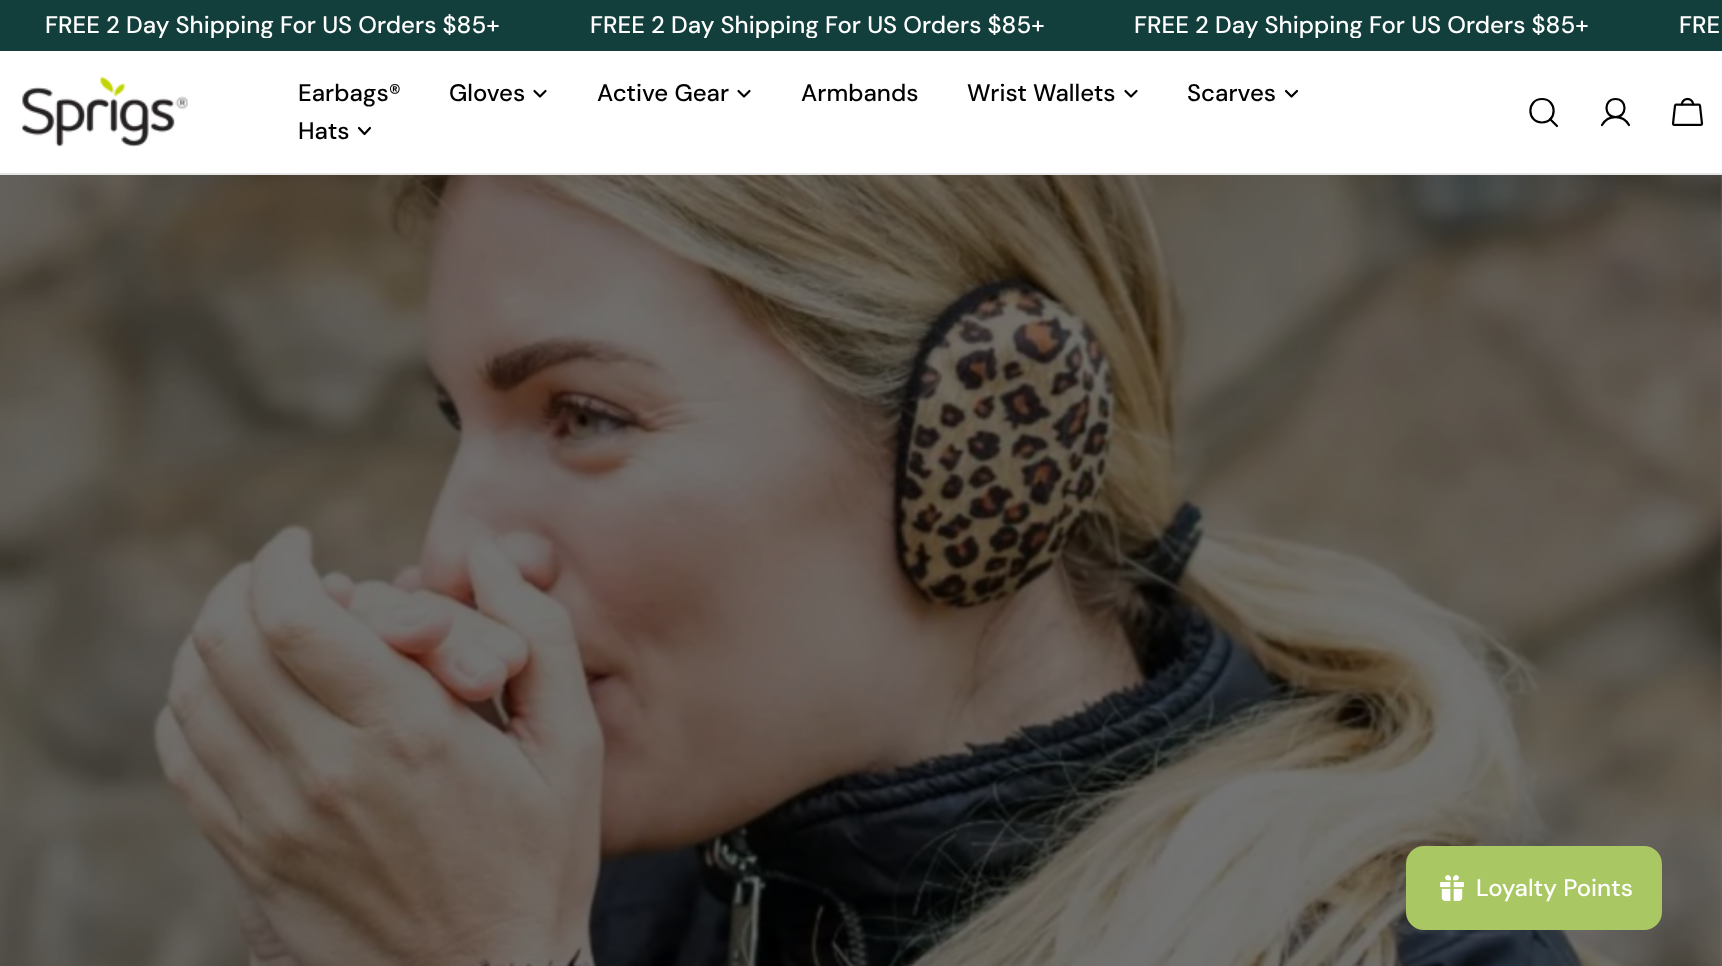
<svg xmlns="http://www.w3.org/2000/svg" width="1722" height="966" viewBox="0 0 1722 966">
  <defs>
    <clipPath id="clip1"><rect x="0" y="14" width="1722" height="24"/></clipPath>
  </defs>
  <rect width="100%" height="100%" fill="rgb(255,255,255)"/>
  <rect x="1720" y="175" width="2" height="791" fill="rgb(115,115,115)"/>
  <rect x="0" y="0" width="1722" height="51" fill="rgb(18,62,59)"/>
  <g clip-path="url(#clip1)">
    <g font-family="DM Sans" font-size="24" font-weight="500" fill="rgb(255,255,255)">
      <text x="45" y="33">FREE 2 Day Shipping For US Orders $85+</text>
      <text x="590" y="33">FREE 2 Day Shipping For US Orders $85+</text>
      <text x="1134" y="33">FREE 2 Day Shipping For US Orders $85+</text>
    </g>
  </g>
  <text x="1679" y="33" font-family="DM Sans" font-size="24" font-weight="500" fill="rgb(255,255,255)">FRE</text>
  <rect x="0" y="173" width="1722" height="2" fill="rgb(230,230,230)"/>
  <image x="22" y="76" width="166" height="71" href="pic1.png"/>
  <g font-family="DM Sans" font-size="24" font-weight="500" fill="rgb(0,0,0)">
    <text x="298" y="101">Earbags®</text>
    <text x="449" y="101">Gloves</text>
  </g>
  <path d="M545.5 91L540 96.5L534.5 91" fill="none" stroke="rgb(0,0,0)" stroke-width="2.2" stroke-linecap="round" stroke-linejoin="round"/>
  <text x="597" y="101" font-family="DM Sans" font-size="24" font-weight="500" fill="rgb(0,0,0)">Active Gear</text>
  <path d="M749.5 91L744 96.5L738.5 91" fill="none" stroke="rgb(0,0,0)" stroke-width="2.2" stroke-linecap="round" stroke-linejoin="round"/>
  <g font-family="DM Sans" font-size="24" font-weight="500" fill="rgb(0,0,0)">
    <text x="801" y="101">Armbands</text>
    <text x="967" y="101">Wrist Wallets</text>
  </g>
  <path d="M1136.5 91L1131 96.5L1125.5 91" fill="none" stroke="rgb(0,0,0)" stroke-width="2.2" stroke-linecap="round" stroke-linejoin="round"/>
  <text x="1187" y="101" font-family="DM Sans" font-size="24" font-weight="500" fill="rgb(0,0,0)">Scarves</text>
  <path d="M1297 91L1291.5 96.5L1286 91" fill="none" stroke="rgb(0,0,0)" stroke-width="2.2" stroke-linecap="round" stroke-linejoin="round"/>
  <text x="298" y="139" font-family="DM Sans" font-size="24" font-weight="500" fill="rgb(0,0,0)">Hats</text>
  <path d="M370 128L364.5 134L359 128" fill="none" stroke="rgb(0,0,0)" stroke-width="2.2" stroke-linecap="round" stroke-linejoin="round"/>
  <path d="M1542 122.5C1557.5 122.5 1557.5 99 1542 99C1526.5 99 1526.5 122.5 1542 122.5ZM1550 119L1557 126" fill="none" stroke="rgb(0,0,0)" stroke-width="2.2" stroke-linecap="round" stroke-linejoin="round"/>
  <path d="M1615.5 117C1627.5 117 1627.5 99 1615.5 99C1603.5 99 1603.5 117 1615.5 117ZM1602 125C1608 114.5 1623 114.5 1629 125" fill="none" stroke="rgb(0,0,0)" stroke-width="2.2" stroke-linecap="round" stroke-linejoin="round"/>
  <image x="1671" y="97" width="33" height="29" href="pic2.png"/>
  <image x="0" y="175" width="1722" height="791" href="pic3.png"/>
  <rect x="1406" y="846" width="256" height="84" rx="18" fill="rgb(169,199,98)"/>
  <image x="1440" y="875" width="24" height="26" href="pic4.png"/>
  <text x="1476" y="896" font-family="DM Sans" font-size="24" font-weight="500" fill="rgb(255,255,255)">Loyalty Points</text>
</svg>
